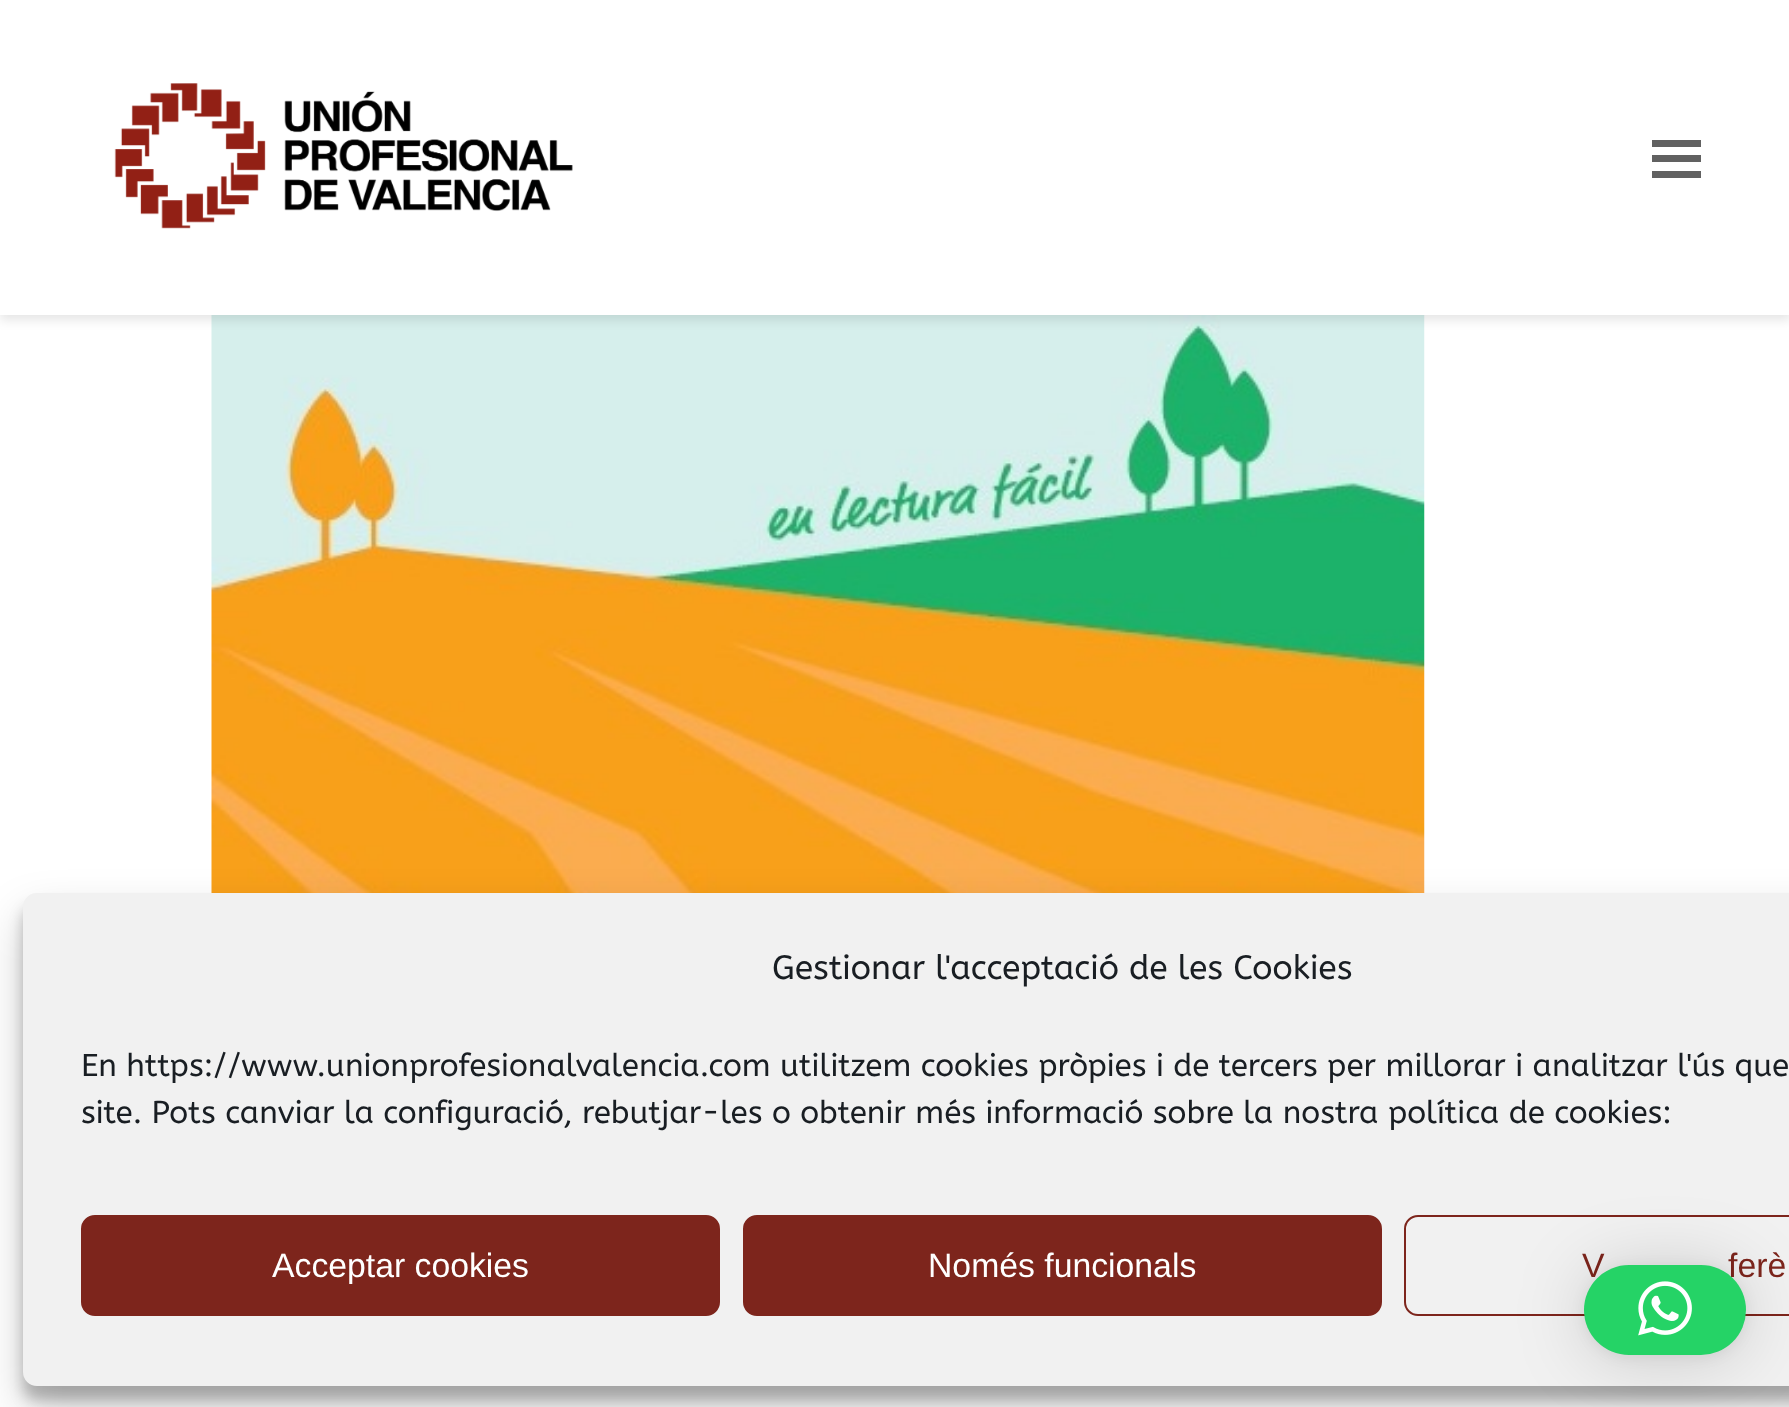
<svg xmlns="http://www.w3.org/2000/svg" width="1789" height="1407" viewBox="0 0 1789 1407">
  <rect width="100%" height="100%" fill="rgb(255,255,255)"/>
  <image x="211" y="315" width="1214" height="578" href="pic2.png"/>
  <rect x="0" y="5" width="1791" height="315" fill="rgba(0,0,0,0.1)" filter="blur(5.5px)"/>
  <rect x="0" y="0" width="1789" height="315" fill="rgb(255,255,255)"/>
  <image x="114" y="83" width="459" height="146" href="pic1.png"/>
  <rect x="1652" y="155" width="49" height="7" fill="rgb(97,97,97)"/>
  <rect x="1652" y="140" width="49" height="7" fill="rgb(97,97,97)"/>
  <rect x="1652" y="171" width="49" height="7" fill="rgb(97,97,97)"/>
  <rect x="23" y="907" width="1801" height="493" rx="14" fill="rgba(0,0,0,0.23)" filter="blur(7px)"/>
  <rect x="23" y="916" width="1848" height="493" rx="14" fill="rgba(0,0,0,0.19)" filter="blur(22.5px)"/>
  <rect x="30" y="900" width="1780" height="479" rx="7" fill="rgb(241,241,241)" stroke="rgb(241,241,241)" stroke-width="14"/>
  <text x="772" y="979" font-family="ABeeZee" font-size="33.75" fill="rgb(25,30,35)">Gestionar l'acceptació de les Cookies</text>
  <g font-family="ABeeZee" font-size="31.5" fill="rgb(25,30,35)">
    <text>
      <tspan x="81" y="1076">En https://www.unionprofesionalvalencia.com utilitzem cookies pròpies i de tercers per millorar i analitzar l'ús que</tspan>
      <tspan x="81" y="1123">site. Pots canviar la configuració, rebutjar-les o obtenir més informació sobre la nostra política de cookies:</tspan>
    </text>
  </g>
  <rect x="82" y="1216" width="637" height="99" rx="13" fill="rgb(125,37,28)" stroke="rgb(125,37,28)" stroke-width="2"/>
  <text x="272" y="1277" font-family="Liberation Sans" font-size="33.75" fill="rgb(255,255,255)">Acceptar cookies</text>
  <rect x="744" y="1216" width="637" height="99" rx="13" fill="rgb(125,37,28)" stroke="rgb(125,37,28)" stroke-width="2"/>
  <text x="928" y="1277" font-family="Liberation Sans" font-size="33.75" fill="rgb(255,255,255)">Només funcionals</text>
  <rect x="1405" y="1216" width="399" height="99" rx="13" fill="none" stroke="rgb(125,37,28)" stroke-width="2"/>
  <g font-family="Liberation Sans" font-size="33.75" fill="rgb(125,37,28)">
    <text x="1582" y="1277">V</text>
    <text x="1728" y="1277">ferè</text>
  </g>
  <rect x="1584" y="1269" width="162" height="90" rx="45" fill="rgba(0,0,0,0.16)" filter="blur(36px)"/>
  <rect x="1584" y="1267" width="162" height="90" rx="45" fill="rgba(0,0,0,0.06)" filter="blur(7px)"/>
  <rect x="1584" y="1265" width="162" height="90" rx="45" fill="rgb(37,211,102)"/>
  <image x="1638" y="1281" width="54" height="55" href="pic3.png"/>
</svg>
